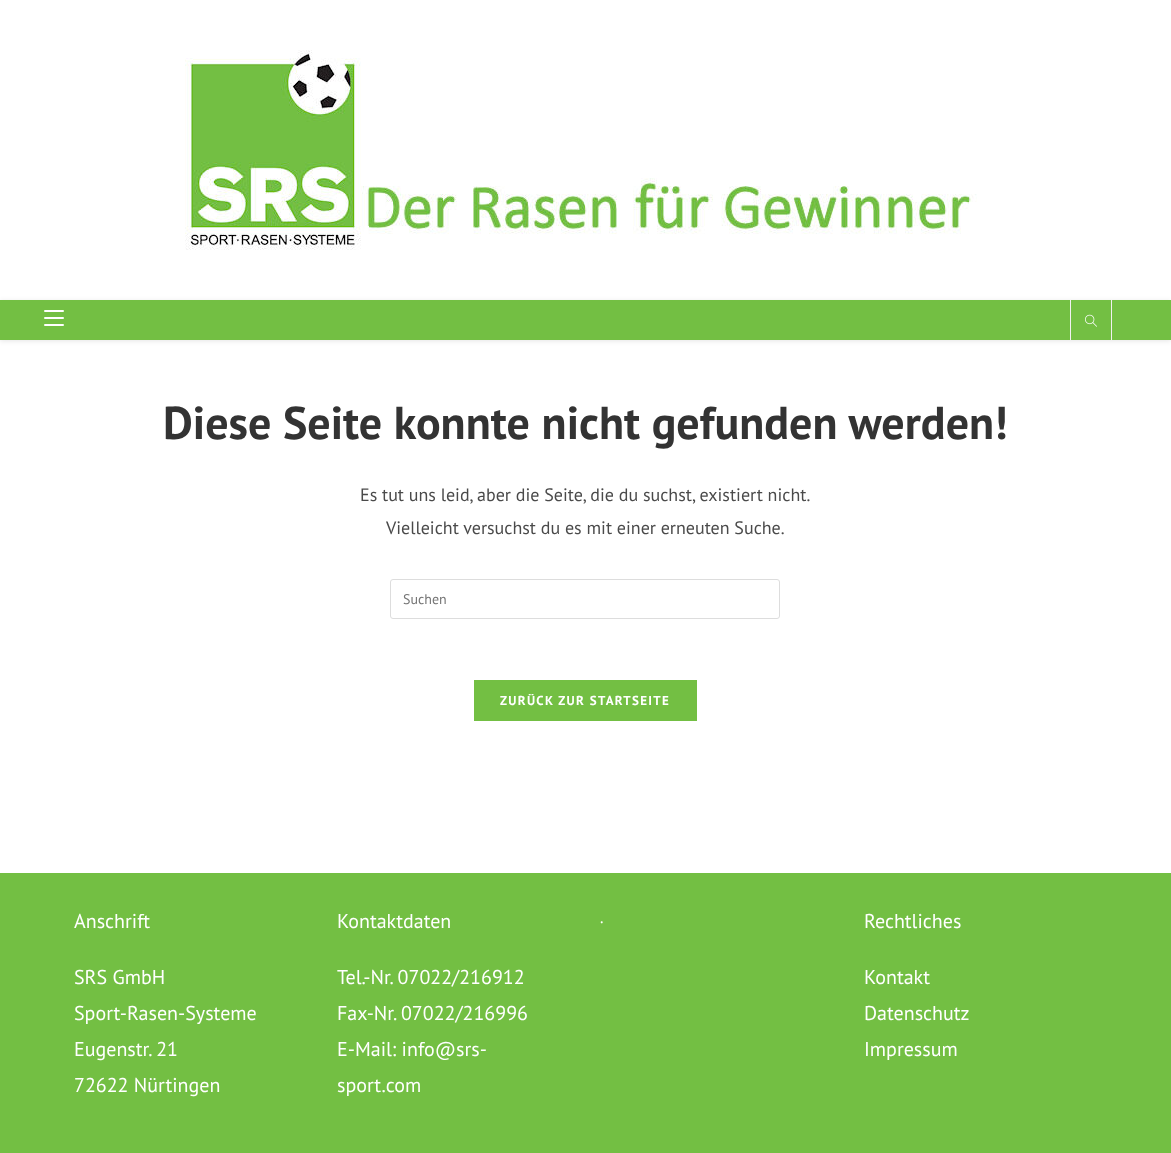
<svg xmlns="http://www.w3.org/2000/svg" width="1171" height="1153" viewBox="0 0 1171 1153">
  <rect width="100%" height="100%" fill="rgb(255,255,255)"/>
  <image x="185" y="50" width="792" height="200" href="pic1.png"/>
  <rect x="0" y="301" width="1171" height="40" fill="rgba(0,0,0,0.1)" filter="blur(2.5px)"/>
  <rect x="0" y="300" width="1171" height="40" fill="rgb(115,191,67)"/>
  <rect x="44" y="310" width="20" height="2" rx="1" fill="rgb(255,255,255)"/>
  <rect x="44" y="317" width="20" height="2" rx="1" fill="rgb(255,255,255)"/>
  <rect x="44" y="324" width="20" height="2" rx="1" fill="rgb(255,255,255)"/>
  <rect x="1111" y="300" width="1" height="40" fill="rgb(241,241,241)"/>
  <rect x="1070" y="300" width="1" height="40" fill="rgb(241,241,241)"/>
  <image x="1085" y="314" width="12" height="13" href="pic2.png"/>
  <text x="163" y="439" font-family="PT Sans" font-size="46" font-weight="bold" fill="rgb(51,51,51)">Diese Seite konnte nicht gefunden werden!</text>
  <g font-family="PT Sans" font-size="18" fill="rgb(74,74,74)">
    <text x="360" y="501">Es tut uns leid, aber die Seite, die du suchst, existiert nicht.</text>
    <text x="386" y="534">Vielleicht versuchst du es mit einer erneuten Suche.</text>
  </g>
  <rect x="390.5" y="579.5" width="389" height="39" rx="2.5" fill="none" stroke="rgb(221,221,221)"/>
  <text x="403" y="604" font-family="PT Sans" font-size="14" fill="rgb(117,117,117)">Suchen</text>
  <rect x="474" y="680" width="223" height="41" fill="rgb(115,191,67)"/>
  <text x="500" y="705" font-family="PT Sans" font-size="13" font-weight="bold" letter-spacing="1.3" fill="rgb(255,255,255)">ZURÜCK ZUR STARTSEITE</text>
  <rect x="0" y="873" width="1171" height="280" fill="rgb(115,191,67)"/>
  <g font-family="PT Sans" font-size="20" fill="rgb(255,255,255)">
    <text x="74" y="928">Anschrift</text>
    <text>
      <tspan x="74" y="984">SRS GmbH</tspan>
      <tspan x="74" y="1020">Sport-Rasen-Systeme</tspan>
      <tspan x="74" y="1056">Eugenstr. 21</tspan>
      <tspan x="74" y="1092">72622 Nürtingen</tspan>
    </text>
    <text x="337" y="928">Kontaktdaten</text>
    <text>
      <tspan x="337" y="984">Tel.-Nr. 07022/216912</tspan>
      <tspan x="337" y="1020">Fax-Nr. 07022/216996</tspan>
      <tspan x="337" y="1056">E-Mail: info@srs-</tspan>
      <tspan x="337" y="1092">sport.com</tspan>
    </text>
  </g>
  <text x="600" y="923" font-family="PT Sans" font-size="16" fill="rgb(255,255,255)">.</text>
  <g font-family="PT Sans" font-size="20" fill="rgb(255,255,255)">
    <text x="864" y="928">Rechtliches</text>
    <text>
      <tspan x="864" y="984">Kontakt</tspan>
      <tspan x="864" y="1020">Datenschutz</tspan>
      <tspan x="864" y="1056">Impressum</tspan>
    </text>
  </g>
</svg>
